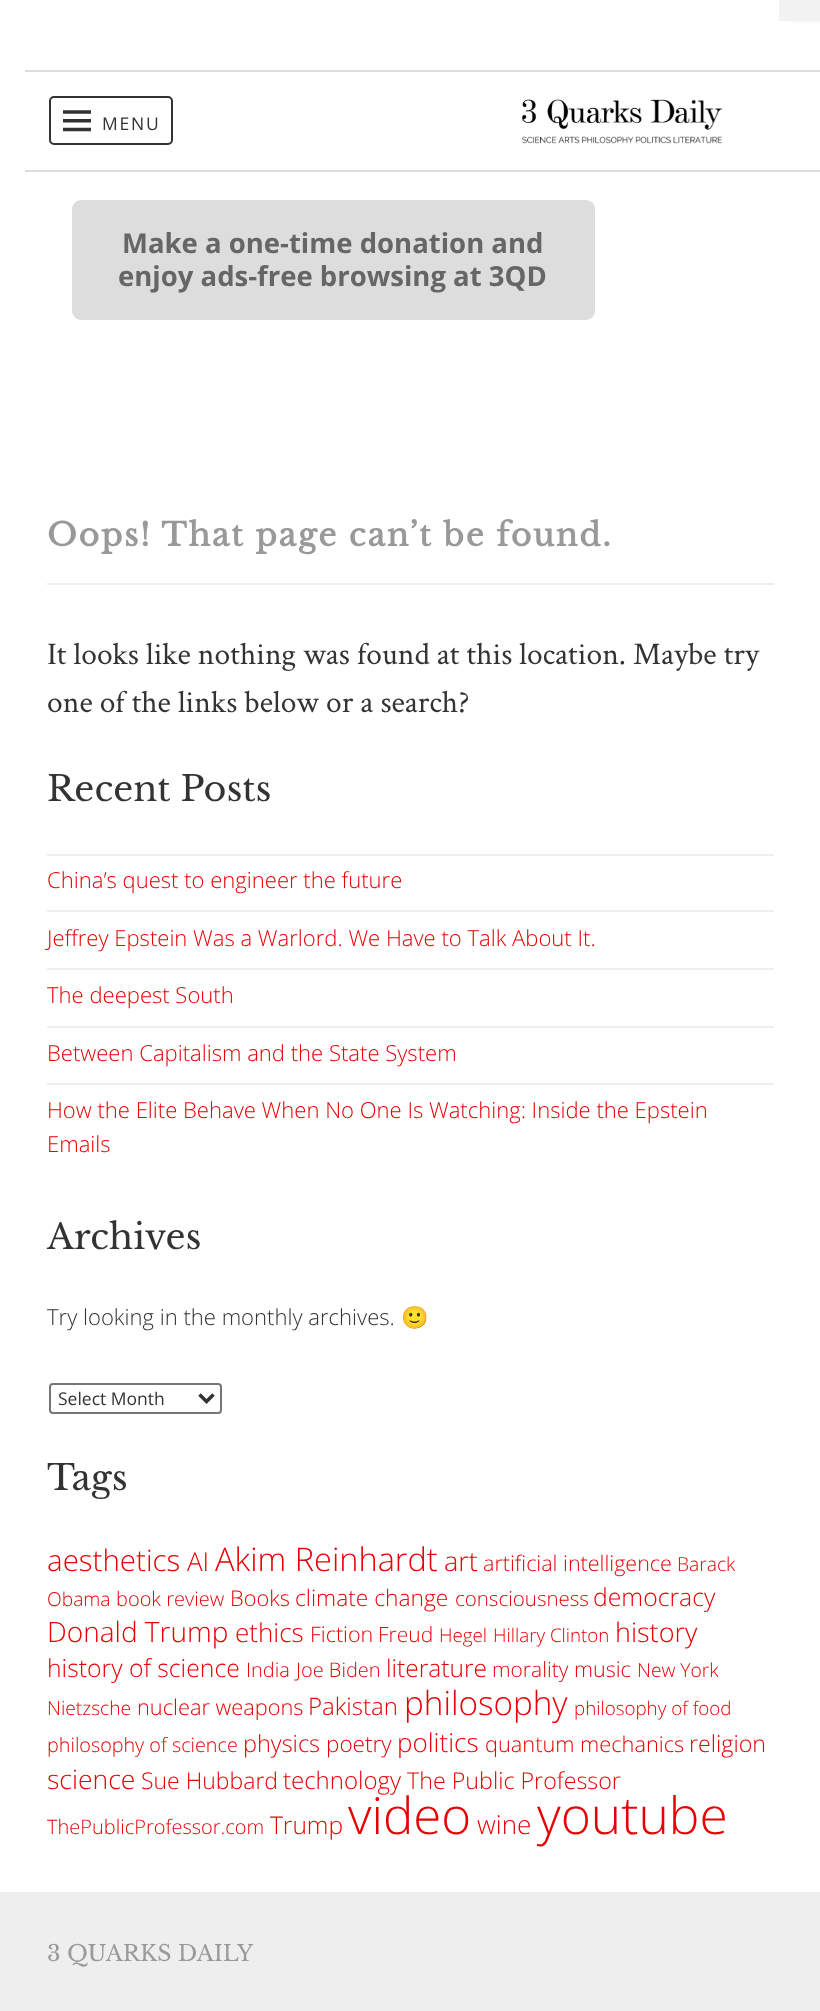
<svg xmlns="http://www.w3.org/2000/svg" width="820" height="2011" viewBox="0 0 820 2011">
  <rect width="100%" height="100%" fill="rgb(255,255,255)"/>
  <rect x="791" y="-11" width="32" height="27" fill="rgb(102,102,102)" filter="blur(3.5px)"/>
  <rect x="779" y="0" width="41" height="21" fill="rgb(242,242,242)"/>
  <rect x="25" y="70" width="795" height="2" fill="rgb(221,221,221)"/>
  <rect x="25" y="170" width="795" height="2" fill="rgb(221,221,221)"/>
  <rect x="50" y="97" width="122" height="47" rx="4" fill="none" stroke="rgb(51,51,51)" stroke-width="2"/>
  <image x="63" y="110" width="28" height="22" href="pic1.png"/>
  <text x="102" y="130" font-family="Open Sans" font-size="17.5" letter-spacing="1.75" fill="rgb(51,51,51)">MENU</text>
  <image x="522" y="99" width="201" height="45" href="pic2.png"/>
  <rect x="72" y="200" width="523" height="120" rx="9" fill="rgb(221,221,221)"/>
  <g font-family="Open Sans" font-size="27.5" font-weight="bold" fill="rgb(102,102,102)">
    <text x="122" y="253">Make a one-time donation and</text>
    <text x="118" y="286">enjoy ads-free browsing at 3QD</text>
  </g>
  <rect x="47" y="583" width="727" height="2" fill="rgb(238,238,238)"/>
  <text x="47" y="546" font-family="Libre Baskerville" font-size="31.5" font-weight="bold" letter-spacing="1.75" fill="rgb(153,153,153)">Oops! That page can’t be found.</text>
  <g font-family="Crimson Text" font-size="31.5" fill="rgb(51,51,51)">
    <text>
      <tspan x="47" y="664">It looks like nothing was found at this location. Maybe try</tspan>
      <tspan x="47" y="712">one of the links below or a search?</tspan>
    </text>
  </g>
  <text x="47" y="801" font-family="Libre Baskerville" font-size="35" fill="rgb(51,51,51)">Recent Posts</text>
  <rect x="47" y="854" width="727" height="2" fill="rgb(238,238,238)"/>
  <text x="47" y="888" font-family="Open Sans" font-size="22.05" font-weight="300" fill="rgb(232,0,4)">China’s quest to engineer the future</text>
  <rect x="47" y="910" width="727" height="2" fill="rgb(238,238,238)"/>
  <text x="47" y="946" font-family="Open Sans" font-size="22.05" font-weight="300" fill="rgb(232,0,4)">Jeffrey Epstein Was a Warlord. We Have to Talk About It.</text>
  <rect x="47" y="968" width="727" height="2" fill="rgb(238,238,238)"/>
  <text x="47" y="1003" font-family="Open Sans" font-size="22.05" font-weight="300" fill="rgb(232,0,4)">The deepest South</text>
  <rect x="47" y="1026" width="727" height="2" fill="rgb(238,238,238)"/>
  <text x="47" y="1061" font-family="Open Sans" font-size="22.05" font-weight="300" fill="rgb(232,0,4)">Between Capitalism and the State System</text>
  <rect x="47" y="1083" width="727" height="2" fill="rgb(238,238,238)"/>
  <g font-family="Open Sans" font-size="22.05" font-weight="300" fill="rgb(232,0,4)">
    <text>
      <tspan x="47" y="1118">How the Elite Behave When No One Is Watching: Inside the Epstein</tspan>
      <tspan x="47" y="1152">Emails</tspan>
    </text>
  </g>
  <text x="47" y="1249" font-family="Libre Baskerville" font-size="35" fill="rgb(51,51,51)">Archives</text>
  <text x="47" y="1325" font-family="Open Sans" font-size="22.05" font-weight="300" fill="rgb(51,51,51)">Try looking in the monthly archives.</text>
  <text x="401" y="1325" font-family="Noto Color Emoji" font-size="22.05" fill="rgb(51,51,51)">🙂</text>
  <rect x="50" y="1384" width="171" height="29" rx="3" fill="none" stroke="rgb(118,118,118)" stroke-width="2"/>
  <path d="M199.5 1394.5L206.5 1401.5L213.5 1394.5" fill="none" stroke="rgb(51,51,51)" stroke-width="3.5"/>
  <text x="58" y="1405" font-family="Open Sans" font-size="17.5" fill="rgb(51,51,51)">Select Month</text>
  <text x="47" y="1490" font-family="Libre Baskerville" font-size="35" fill="rgb(51,51,51)">Tags</text>
  <text x="47" y="1571" font-family="Open Sans" font-size="29.5" font-weight="300" fill="rgb(232,0,4)">aesthetics</text>
  <text x="187" y="1571" font-family="Open Sans" font-size="26" font-weight="300" fill="rgb(232,0,4)">AI</text>
  <text x="215" y="1571" font-family="Open Sans" font-size="32.5" font-weight="300" fill="rgb(232,0,4)">Akim Reinhardt</text>
  <text x="444" y="1571" font-family="Open Sans" font-size="27" font-weight="300" fill="rgb(232,0,4)">art</text>
  <text x="483" y="1571" font-family="Open Sans" font-size="21.5" font-weight="300" fill="rgb(232,0,4)">artificial intelligence</text>
  <g font-family="Open Sans" font-size="19.25" font-weight="300" fill="rgb(232,0,4)">
    <text x="677" y="1571">Barack</text>
    <text x="47" y="1606">Obama</text>
  </g>
  <text x="116" y="1606" font-family="Open Sans" font-size="20" font-weight="300" fill="rgb(232,0,4)">book review</text>
  <text x="230" y="1606" font-family="Open Sans" font-size="21.75" font-weight="300" fill="rgb(232,0,4)">Books</text>
  <text x="295" y="1606" font-family="Open Sans" font-size="22.75" font-weight="300" fill="rgb(232,0,4)">climate change</text>
  <text x="455" y="1606" font-family="Open Sans" font-size="20.5" font-weight="300" fill="rgb(232,0,4)">consciousness</text>
  <text x="593" y="1606" font-family="Open Sans" font-size="24.75" font-weight="300" fill="rgb(232,0,4)">democracy</text>
  <text x="47" y="1642" font-family="Open Sans" font-size="28" font-weight="300" fill="rgb(232,0,4)">Donald Trump</text>
  <text x="235" y="1642" font-family="Open Sans" font-size="26" font-weight="300" fill="rgb(232,0,4)">ethics</text>
  <text x="310" y="1642" font-family="Open Sans" font-size="21.5" font-weight="300" fill="rgb(232,0,4)">Fiction</text>
  <text x="378" y="1642" font-family="Open Sans" font-size="21" font-weight="300" fill="rgb(232,0,4)">Freud</text>
  <g font-family="Open Sans" font-size="18.75" font-weight="300" fill="rgb(232,0,4)">
    <text x="439" y="1642">Hegel</text>
    <text x="493" y="1642">Hillary Clinton</text>
  </g>
  <text x="615" y="1642" font-family="Open Sans" font-size="27" font-weight="300" fill="rgb(232,0,4)">history</text>
  <text x="47" y="1677" font-family="Open Sans" font-size="24.75" font-weight="300" fill="rgb(232,0,4)">history of science</text>
  <g font-family="Open Sans" font-size="20" font-weight="300" fill="rgb(232,0,4)">
    <text x="246" y="1677">India</text>
    <text x="296" y="1677">Joe Biden</text>
  </g>
  <text x="386" y="1677" font-family="Open Sans" font-size="24.5" font-weight="300" fill="rgb(232,0,4)">literature</text>
  <text x="492" y="1677" font-family="Open Sans" font-size="21" font-weight="300" fill="rgb(232,0,4)">morality</text>
  <text x="574" y="1677" font-family="Open Sans" font-size="21.5" font-weight="300" fill="rgb(232,0,4)">music</text>
  <g font-family="Open Sans" font-size="19.25" font-weight="300" fill="rgb(232,0,4)">
    <text x="637" y="1677">New York</text>
    <text x="47" y="1715">Nietzsche</text>
  </g>
  <text x="137" y="1715" font-family="Open Sans" font-size="21.75" font-weight="300" fill="rgb(232,0,4)">nuclear weapons</text>
  <text x="308" y="1715" font-family="Open Sans" font-size="24" font-weight="300" fill="rgb(232,0,4)">Pakistan</text>
  <text x="404" y="1715" font-family="Open Sans" font-size="33.25" font-weight="300" fill="rgb(232,0,4)">philosophy</text>
  <text x="574" y="1715" font-family="Open Sans" font-size="18.75" font-weight="300" fill="rgb(232,0,4)">philosophy of food</text>
  <text x="47" y="1752" font-family="Open Sans" font-size="19.75" font-weight="300" fill="rgb(232,0,4)">philosophy of science</text>
  <text x="243" y="1752" font-family="Open Sans" font-size="23.5" font-weight="300" fill="rgb(232,0,4)">physics</text>
  <text x="326" y="1752" font-family="Open Sans" font-size="22.5" font-weight="300" fill="rgb(232,0,4)">poetry</text>
  <text x="397" y="1752" font-family="Open Sans" font-size="26" font-weight="300" fill="rgb(232,0,4)">politics</text>
  <text x="485" y="1752" font-family="Open Sans" font-size="21.75" font-weight="300" fill="rgb(232,0,4)">quantum mechanics</text>
  <text x="689" y="1752" font-family="Open Sans" font-size="23.25" font-weight="300" fill="rgb(232,0,4)">religion</text>
  <text x="47" y="1789" font-family="Open Sans" font-size="26.5" font-weight="300" fill="rgb(232,0,4)">science</text>
  <text x="141" y="1789" font-family="Open Sans" font-size="23" font-weight="300" fill="rgb(232,0,4)">Sue Hubbard</text>
  <text x="283" y="1789" font-family="Open Sans" font-size="24" font-weight="300" fill="rgb(232,0,4)">technology</text>
  <text x="407" y="1789" font-family="Open Sans" font-size="23.25" font-weight="300" fill="rgb(232,0,4)">The Public Professor</text>
  <text x="47" y="1834" font-family="Open Sans" font-size="20" font-weight="300" fill="rgb(232,0,4)">ThePublicProfessor.com</text>
  <text x="270" y="1834" font-family="Open Sans" font-size="24.5" font-weight="300" fill="rgb(232,0,4)">Trump</text>
  <text x="348" y="1834" font-family="Open Sans" font-size="51" font-weight="300" fill="rgb(232,0,4)">video</text>
  <text x="477" y="1834" font-family="Open Sans" font-size="26" font-weight="300" fill="rgb(232,0,4)">wine</text>
  <text x="537" y="1834" font-family="Open Sans" font-size="51.5" font-weight="300" fill="rgb(232,0,4)">youtube</text>
  <rect x="0" y="1892" width="820" height="119" fill="rgb(238,238,238)"/>
  <text x="47" y="1961" font-family="Libre Baskerville" font-size="22.05" fill="rgb(153,153,153)">3 QUARKS DAILY</text>
</svg>
